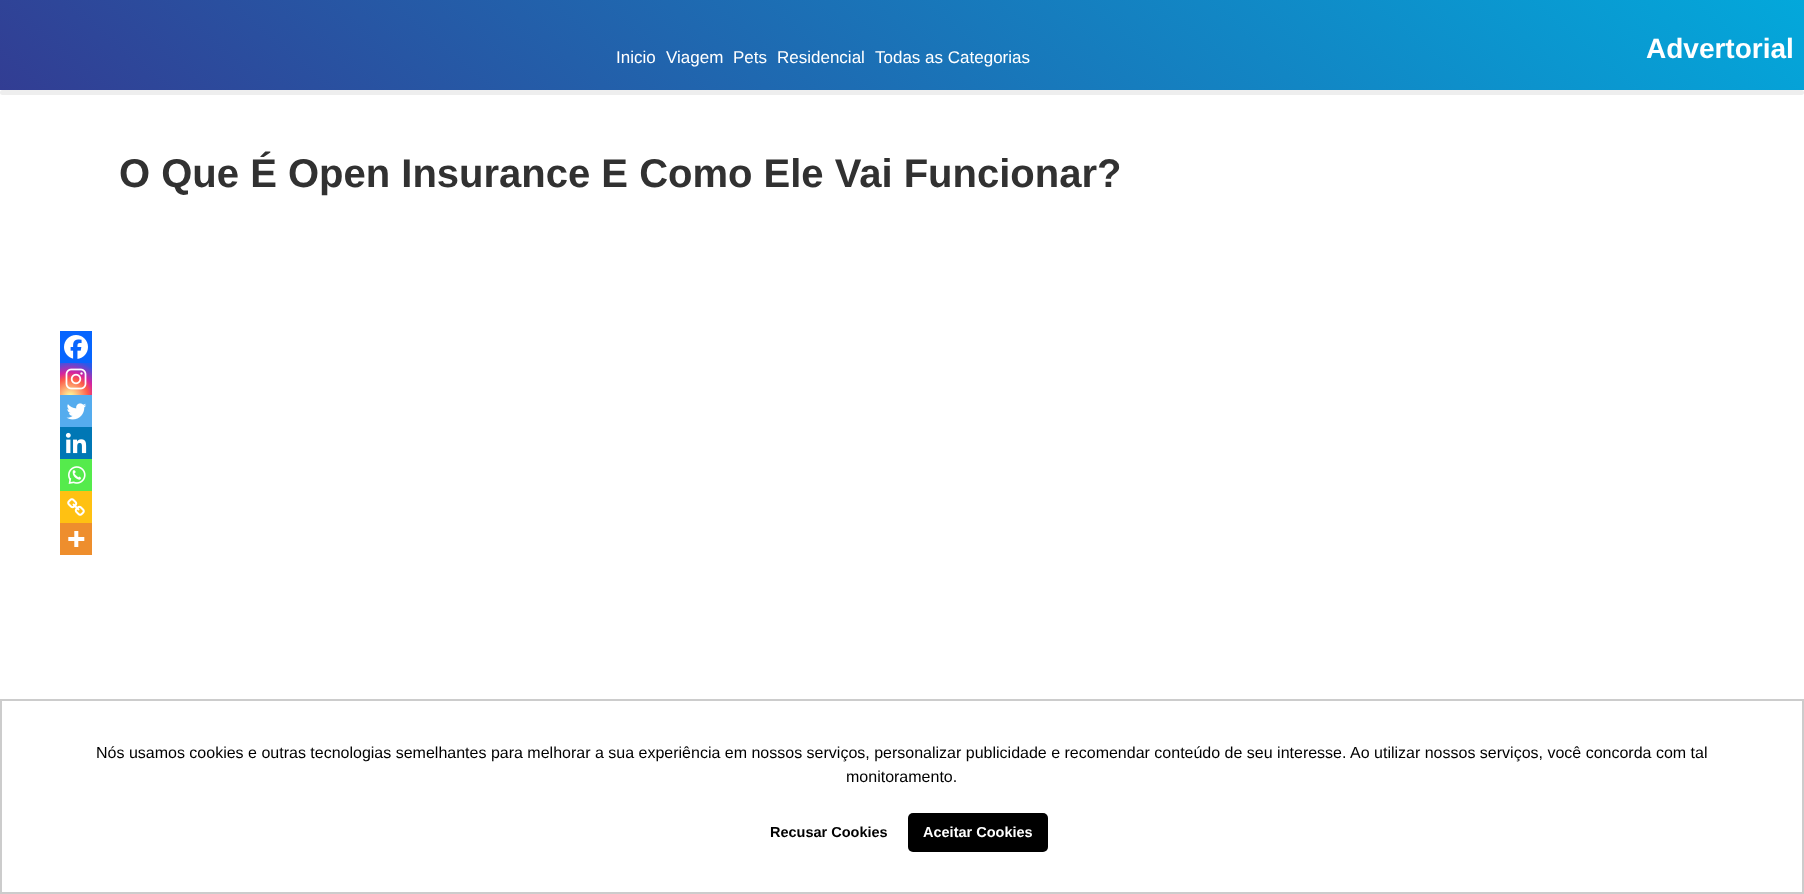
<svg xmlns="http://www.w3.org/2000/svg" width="1804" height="894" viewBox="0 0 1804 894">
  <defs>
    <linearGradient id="g1" gradientUnits="userSpaceOnUse" x1="507" y1="516" x2="1297" y2="-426"><stop offset="0" stop-color="rgb(50,61,147)"/><stop offset="1" stop-color="rgb(3,168,219)"/></linearGradient>
    <radialGradient id="g2" gradientUnits="userSpaceOnUse" cx="70" cy="397" r="41"><stop offset="0" stop-color="rgb(253,244,151)"/><stop offset="0.05" stop-color="rgb(253,244,151)"/><stop offset="0.45" stop-color="rgb(253,89,73)"/><stop offset="0.6" stop-color="rgb(214,36,159)"/><stop offset="0.9" stop-color="rgb(40,90,235)"/></radialGradient>
  </defs>
  <rect width="100%" height="100%" fill="rgb(255,255,255)"/>
  <rect x="0" y="0" width="1804" height="90" fill="url(#g1)"/>
  <g font-family="Liberation Sans" font-size="17" fill="rgb(255,255,255)">
    <text x="616" y="63">Inicio</text>
    <text x="666" y="63">Viagem</text>
    <text x="733" y="63">Pets</text>
    <text x="777" y="63">Residencial</text>
    <text x="875" y="63">Todas as Categorias</text>
  </g>
  <text x="1646" y="58" font-family="Liberation Sans" font-size="28" font-weight="bold" fill="rgb(255,255,255)">Advertorial</text>
  <rect x="0" y="90" width="1804" height="5" rx="2.5" fill="rgb(238,238,238)"/>
  <text x="119" y="187" font-family="Liberation Sans" font-size="40" font-weight="bold" fill="rgb(49,49,49)">O Que É Open Insurance E Como Ele Vai Funcionar?</text>
  <rect x="60" y="331" width="32" height="32" fill="rgb(7,101,254)"/>
  <image x="64" y="335" width="24" height="24" href="pic1.png"/>
  <rect x="60" y="363" width="32" height="32" fill="url(#g2)"/>
  <image x="65" y="368" width="22" height="22" href="pic2.png"/>
  <rect x="60" y="395" width="32" height="32" fill="rgb(85,172,238)"/>
  <image x="66" y="403" width="21" height="17" href="pic3.png"/>
  <rect x="60" y="427" width="32" height="32" fill="rgb(0,119,181)"/>
  <image x="65" y="432" width="22" height="22" href="pic4.png"/>
  <rect x="60" y="459" width="32" height="32" fill="rgb(85,235,76)"/>
  <image x="68" y="466" width="18" height="18" href="pic5.png"/>
  <rect x="60" y="491" width="32" height="32" fill="rgb(255,193,18)"/>
  <image x="67" y="498" width="18" height="18" href="pic6.png"/>
  <rect x="60" y="523" width="32" height="32" fill="rgb(238,142,45)"/>
  <image x="68" y="531" width="17" height="16" href="pic7.png"/>
  <rect x="1" y="700" width="1802" height="193" fill="none" stroke="rgb(204,204,204)" stroke-width="2"/>
  <g font-family="Liberation Sans" font-size="16" fill="rgb(0,0,0)">
    <text x="96" y="758">Nós usamos cookies e outras tecnologias semelhantes para melhorar a sua experiência em nossos serviços, personalizar publicidade e recomendar conteúdo de seu interesse. Ao utilizar nossos serviços, você concorda com tal</text>
    <text x="846" y="782">monitoramento.</text>
  </g>
  <text x="770" y="837" font-family="Liberation Sans" font-size="14.5" font-weight="bold" fill="rgb(0,0,0)">Recusar Cookies</text>
  <rect x="908" y="813" width="140" height="39" rx="5" fill="rgb(0,0,0)"/>
  <text x="923" y="837" font-family="Liberation Sans" font-size="14.5" font-weight="bold" fill="rgb(255,255,255)">Aceitar Cookies</text>
</svg>
